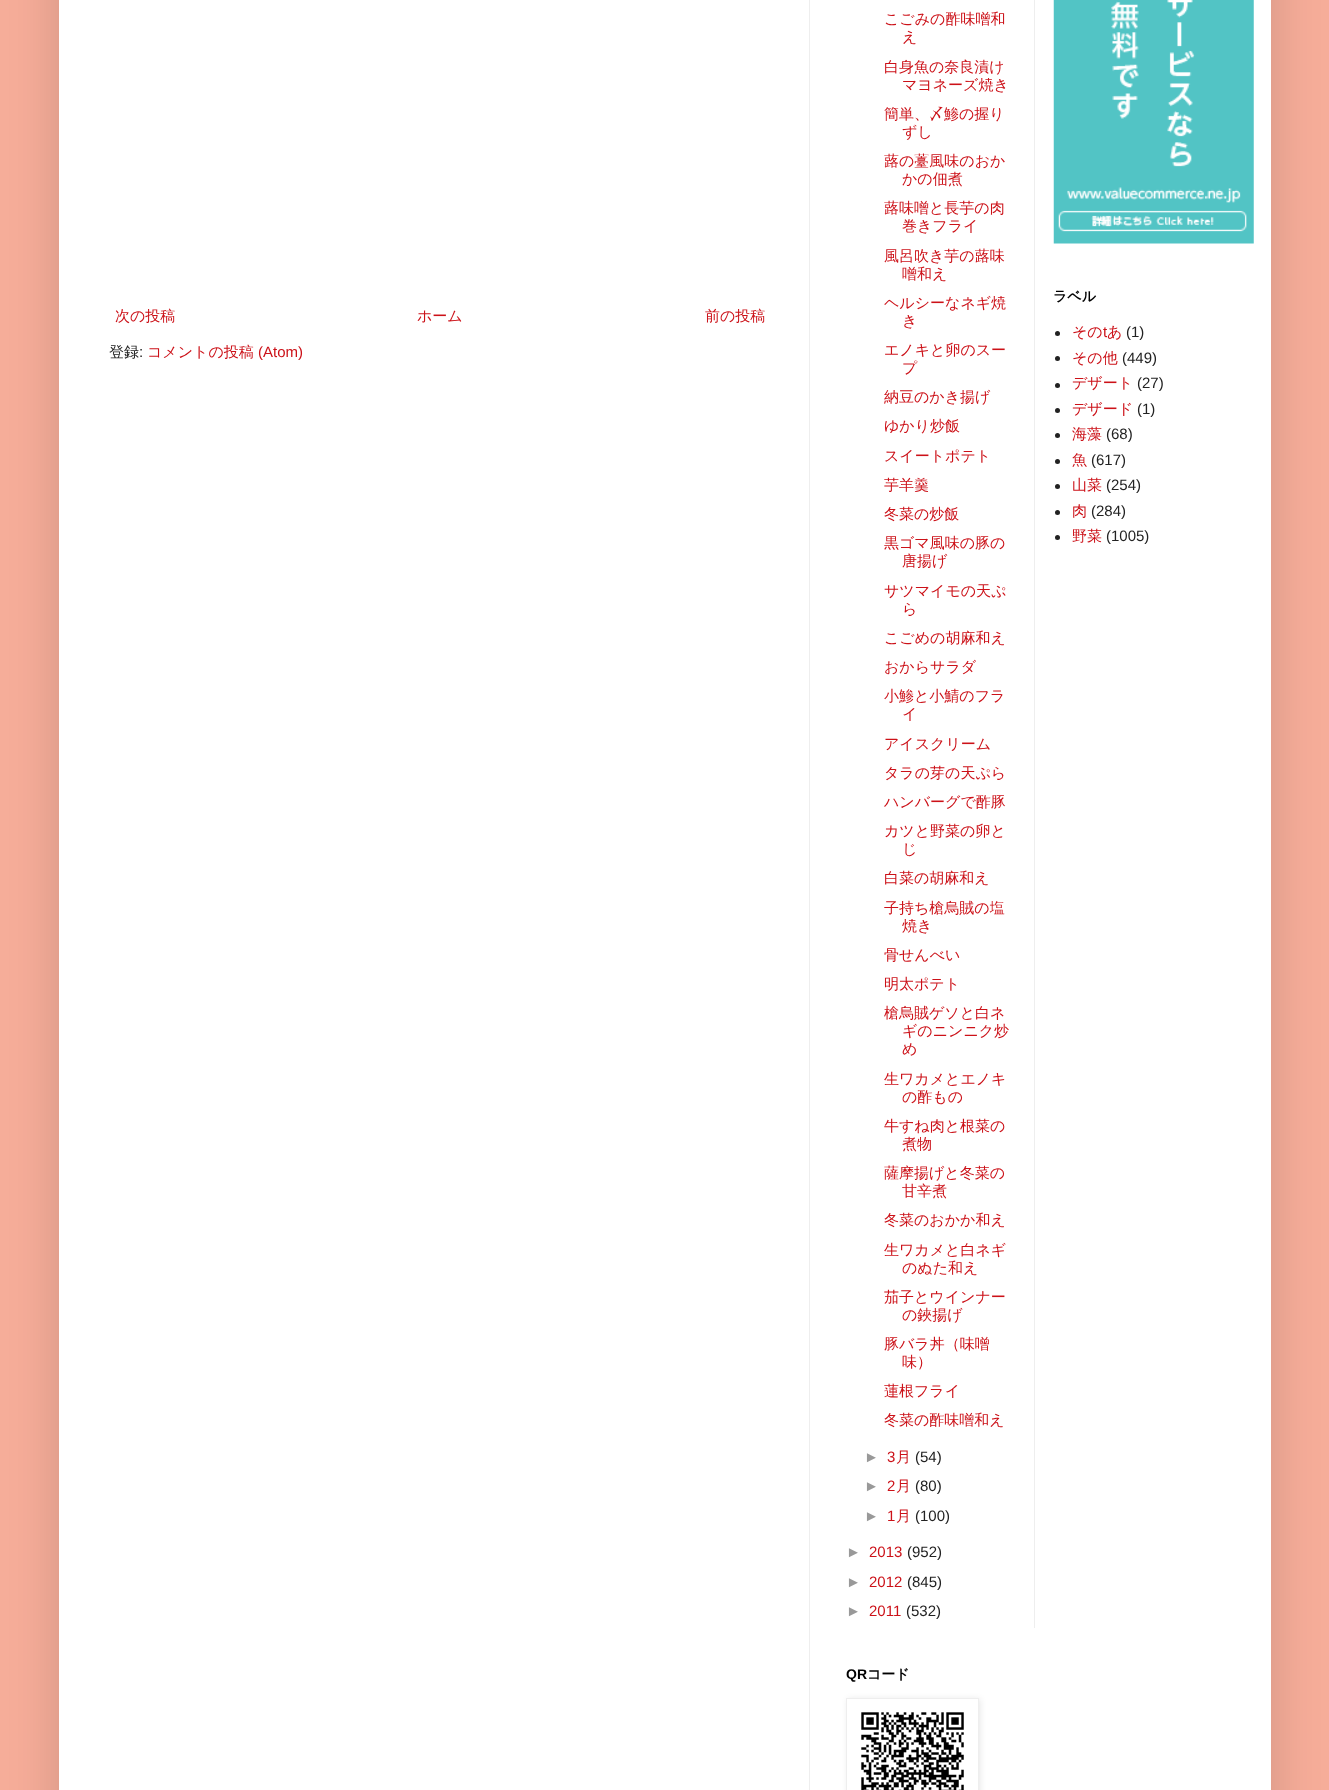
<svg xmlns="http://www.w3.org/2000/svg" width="1329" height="1790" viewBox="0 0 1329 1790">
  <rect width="100%" height="100%" fill="rgb(246,173,153)"/>
  <rect x="59" y="-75" width="1212" height="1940" fill="rgba(0,0,0,0.15)" filter="blur(25px)"/>
  <rect x="59" y="0" width="1212" height="1790" fill="rgb(255,255,255)"/>
  <rect x="809" y="0" width="1" height="1790" fill="rgb(238,238,238)"/>
  <g font-family="WenQuanYi Zen Hei" font-size="15" font-weight="500" fill="rgb(204,17,24)">
    <text x="115" y="321">次の投稿</text>
    <text x="417" y="321">ホーム</text>
    <text x="705" y="321">前の投稿</text>
  </g>
  <text x="109" y="357" font-family="WenQuanYi Zen Hei" font-size="15" font-weight="500" fill="rgb(34,34,34)">登録</text>
  <text x="139" y="357" font-family="Liberation Sans" font-size="15" fill="rgb(34,34,34)">:</text>
  <text x="147" y="357" font-family="WenQuanYi Zen Hei" font-size="15" font-weight="500" fill="rgb(204,17,24)">コメントの投稿</text>
  <text x="258" y="357" font-family="Liberation Sans" font-size="15" fill="rgb(204,17,24)">(Atom)</text>
  <g font-family="WenQuanYi Zen Hei" font-size="15" font-weight="500" fill="rgb(204,17,24)">
    <text x="884" y="24">こごみの酢味噌和</text>
    <text x="902" y="42">え</text>
    <text x="884" y="72">白身魚の奈良漬け</text>
    <text x="902" y="90">マヨネーズ焼き</text>
    <text x="884" y="119">簡単、〆鯵の握り</text>
    <text x="902" y="137">ずし</text>
    <text x="884" y="166">蕗の薹風味のおか</text>
    <text x="902" y="184">かの佃煮</text>
    <text x="884" y="213">蕗味噌と長芋の肉</text>
    <text x="902" y="231">巻きフライ</text>
    <text x="884" y="261">風呂吹き芋の蕗味</text>
    <text x="902" y="279">噌和え</text>
    <text x="884" y="308">ヘルシーなネギ焼</text>
    <text x="902" y="326">き</text>
    <text x="884" y="355">エノキと卵のスー</text>
    <text x="902" y="373">プ</text>
    <text>
      <tspan x="884" y="402">納豆のかき揚げ</tspan>
      <tspan x="884" y="431">ゆかり炒飯</tspan>
    </text>
    <text>
      <tspan x="884" y="461">スイートポテト</tspan>
      <tspan x="884" y="490">芋羊羹</tspan>
      <tspan x="884" y="519">冬菜の炒飯</tspan>
      <tspan x="884" y="548">黒ゴマ風味の豚の</tspan>
    </text>
    <text x="902" y="566">唐揚げ</text>
    <text x="884" y="596">サツマイモの天ぷ</text>
    <text x="902" y="614">ら</text>
    <text>
      <tspan x="884" y="643">こごめの胡麻和え</tspan>
      <tspan x="884" y="672">おからサラダ</tspan>
      <tspan x="884" y="701">小鯵と小鯖のフラ</tspan>
    </text>
    <text x="902" y="719">イ</text>
    <text>
      <tspan x="884" y="749">アイスクリーム</tspan>
      <tspan x="884" y="778">タラの芽の天ぷら</tspan>
      <tspan x="884" y="807">ハンバーグで酢豚</tspan>
      <tspan x="884" y="836">カツと野菜の卵と</tspan>
    </text>
    <text x="902" y="854">じ</text>
    <text x="884" y="883">白菜の胡麻和え</text>
    <text x="884" y="913">子持ち槍烏賊の塩</text>
    <text x="902" y="931">焼き</text>
    <text>
      <tspan x="884" y="960">骨せんべい</tspan>
      <tspan x="884" y="989">明太ポテト</tspan>
      <tspan x="884" y="1018">槍烏賊ゲソと白ネ</tspan>
    </text>
    <text>
      <tspan x="902" y="1036">ギのニンニク炒</tspan>
      <tspan x="902" y="1054">め</tspan>
    </text>
    <text x="884" y="1084">生ワカメとエノキ</text>
    <text x="902" y="1102">の酢もの</text>
    <text x="884" y="1131">牛すね肉と根菜の</text>
    <text x="902" y="1149">煮物</text>
    <text x="884" y="1178">薩摩揚げと冬菜の</text>
    <text x="902" y="1196">甘辛煮</text>
    <text x="884" y="1225">冬菜のおかか和え</text>
    <text x="884" y="1255">生ワカメと白ネギ</text>
    <text x="902" y="1273">のぬた和え</text>
    <text x="884" y="1302">茄子とウインナー</text>
    <text x="902" y="1320">の鋏揚げ</text>
    <text x="884" y="1349">豚バラ丼（味噌</text>
    <text x="902" y="1367">味）</text>
    <text>
      <tspan x="884" y="1396">蓮根フライ</tspan>
      <tspan x="884" y="1425">冬菜の酢味噌和え</tspan>
    </text>
  </g>
  <text x="864" y="1462" font-family="Liberation Sans" font-size="15" fill="rgb(153,153,153)">►</text>
  <text x="887" y="1462" font-family="Liberation Sans" font-size="15" fill="rgb(204,17,24)">3</text>
  <text x="896" y="1462" font-family="WenQuanYi Zen Hei" font-size="15" font-weight="500" fill="rgb(204,17,24)">月</text>
  <text x="915" y="1462" font-family="Liberation Sans" font-size="15" fill="rgb(34,34,34)">(54)</text>
  <text x="864" y="1491" font-family="Liberation Sans" font-size="15" fill="rgb(153,153,153)">►</text>
  <text x="887" y="1491" font-family="Liberation Sans" font-size="15" fill="rgb(204,17,24)">2</text>
  <text x="896" y="1491" font-family="WenQuanYi Zen Hei" font-size="15" font-weight="500" fill="rgb(204,17,24)">月</text>
  <text x="915" y="1491" font-family="Liberation Sans" font-size="15" fill="rgb(34,34,34)">(80)</text>
  <text x="864" y="1521" font-family="Liberation Sans" font-size="15" fill="rgb(153,153,153)">►</text>
  <text x="887" y="1521" font-family="Liberation Sans" font-size="15" fill="rgb(204,17,24)">1</text>
  <text x="896" y="1521" font-family="WenQuanYi Zen Hei" font-size="15" font-weight="500" fill="rgb(204,17,24)">月</text>
  <text x="915" y="1521" font-family="Liberation Sans" font-size="15" fill="rgb(34,34,34)">(100)</text>
  <text x="846" y="1557" font-family="Liberation Sans" font-size="15" fill="rgb(153,153,153)">►</text>
  <text x="869" y="1557" font-family="Liberation Sans" font-size="15" fill="rgb(204,17,24)">2013</text>
  <text x="907" y="1557" font-family="Liberation Sans" font-size="15" fill="rgb(34,34,34)">(952)</text>
  <text x="846" y="1587" font-family="Liberation Sans" font-size="15" fill="rgb(153,153,153)">►</text>
  <text x="869" y="1587" font-family="Liberation Sans" font-size="15" fill="rgb(204,17,24)">2012</text>
  <text x="907" y="1587" font-family="Liberation Sans" font-size="15" fill="rgb(34,34,34)">(845)</text>
  <text x="846" y="1616" font-family="Liberation Sans" font-size="15" fill="rgb(153,153,153)">►</text>
  <text x="869" y="1616" font-family="Liberation Sans" font-size="15" fill="rgb(204,17,24)">2011</text>
  <text x="906" y="1616" font-family="Liberation Sans" font-size="15" fill="rgb(34,34,34)">(532)</text>
  <rect x="1034" y="0" width="1" height="1628" fill="rgb(238,238,238)"/>
  <image x="1053" y="0" width="201" height="244" href="pic1.png"/>
  <text x="1053" y="301" font-family="WenQuanYi Zen Hei" font-size="14" font-weight="bold" fill="rgb(0,0,0)">ラベル</text>
  <circle cx="1057.5" cy="333.5" r="2.5" fill="rgb(34,34,34)"/>
  <text x="1072" y="337" font-family="WenQuanYi Zen Hei" font-size="15" font-weight="500" fill="rgb(204,17,24)">その</text>
  <text x="1103" y="337" font-family="Liberation Sans" font-size="15" fill="rgb(204,17,24)">t</text>
  <text x="1107" y="337" font-family="WenQuanYi Zen Hei" font-size="15" font-weight="500" fill="rgb(204,17,24)">あ</text>
  <text x="1126" y="337" font-family="Liberation Sans" font-size="15" fill="rgb(34,34,34)">(1)</text>
  <circle cx="1057.5" cy="358.5" r="2.5" fill="rgb(34,34,34)"/>
  <text x="1072" y="363" font-family="WenQuanYi Zen Hei" font-size="15" font-weight="500" fill="rgb(204,17,24)">その他</text>
  <text x="1122" y="363" font-family="Liberation Sans" font-size="15" fill="rgb(34,34,34)">(449)</text>
  <circle cx="1057.5" cy="385.5" r="2.5" fill="rgb(34,34,34)"/>
  <text x="1072" y="388" font-family="WenQuanYi Zen Hei" font-size="15" font-weight="500" fill="rgb(204,17,24)">デザート</text>
  <text x="1137" y="388" font-family="Liberation Sans" font-size="15" fill="rgb(34,34,34)">(27)</text>
  <circle cx="1057.5" cy="410.5" r="2.5" fill="rgb(34,34,34)"/>
  <text x="1072" y="414" font-family="WenQuanYi Zen Hei" font-size="15" font-weight="500" fill="rgb(204,17,24)">デザード</text>
  <text x="1137" y="414" font-family="Liberation Sans" font-size="15" fill="rgb(34,34,34)">(1)</text>
  <circle cx="1057.5" cy="435.5" r="2.5" fill="rgb(34,34,34)"/>
  <text x="1072" y="439" font-family="WenQuanYi Zen Hei" font-size="15" font-weight="500" fill="rgb(204,17,24)">海藻</text>
  <text x="1106" y="439" font-family="Liberation Sans" font-size="15" fill="rgb(34,34,34)">(68)</text>
  <circle cx="1057.5" cy="461.5" r="2.5" fill="rgb(34,34,34)"/>
  <text x="1072" y="465" font-family="WenQuanYi Zen Hei" font-size="15" font-weight="500" fill="rgb(204,17,24)">魚</text>
  <text x="1091" y="465" font-family="Liberation Sans" font-size="15" fill="rgb(34,34,34)">(617)</text>
  <circle cx="1057.5" cy="486.5" r="2.5" fill="rgb(34,34,34)"/>
  <text x="1072" y="490" font-family="WenQuanYi Zen Hei" font-size="15" font-weight="500" fill="rgb(204,17,24)">山菜</text>
  <text x="1106" y="490" font-family="Liberation Sans" font-size="15" fill="rgb(34,34,34)">(254)</text>
  <circle cx="1057.5" cy="512.5" r="2.5" fill="rgb(34,34,34)"/>
  <text x="1072" y="516" font-family="WenQuanYi Zen Hei" font-size="15" font-weight="500" fill="rgb(204,17,24)">肉</text>
  <text x="1091" y="516" font-family="Liberation Sans" font-size="15" fill="rgb(34,34,34)">(284)</text>
  <circle cx="1057.5" cy="537.5" r="2.5" fill="rgb(34,34,34)"/>
  <text x="1072" y="541" font-family="WenQuanYi Zen Hei" font-size="15" font-weight="500" fill="rgb(204,17,24)">野菜</text>
  <text x="1106" y="541" font-family="Liberation Sans" font-size="15" fill="rgb(34,34,34)">(1005)</text>
  <text x="846" y="1679" font-family="Liberation Sans" font-size="14" font-weight="bold" fill="rgb(0,0,0)">QR</text>
  <text x="867" y="1679" font-family="WenQuanYi Zen Hei" font-size="14" font-weight="bold" fill="rgb(0,0,0)">コード</text>
  <rect x="848" y="1699" width="132" height="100" fill="rgba(0,0,0,0.1)" filter="blur(3px)"/>
  <rect x="846.5" y="1698.5" width="132" height="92" fill="rgb(255,255,255)" stroke="rgb(238,238,238)"/>
  <image x="861" y="1712" width="103" height="78" href="pic2.png"/>
</svg>
